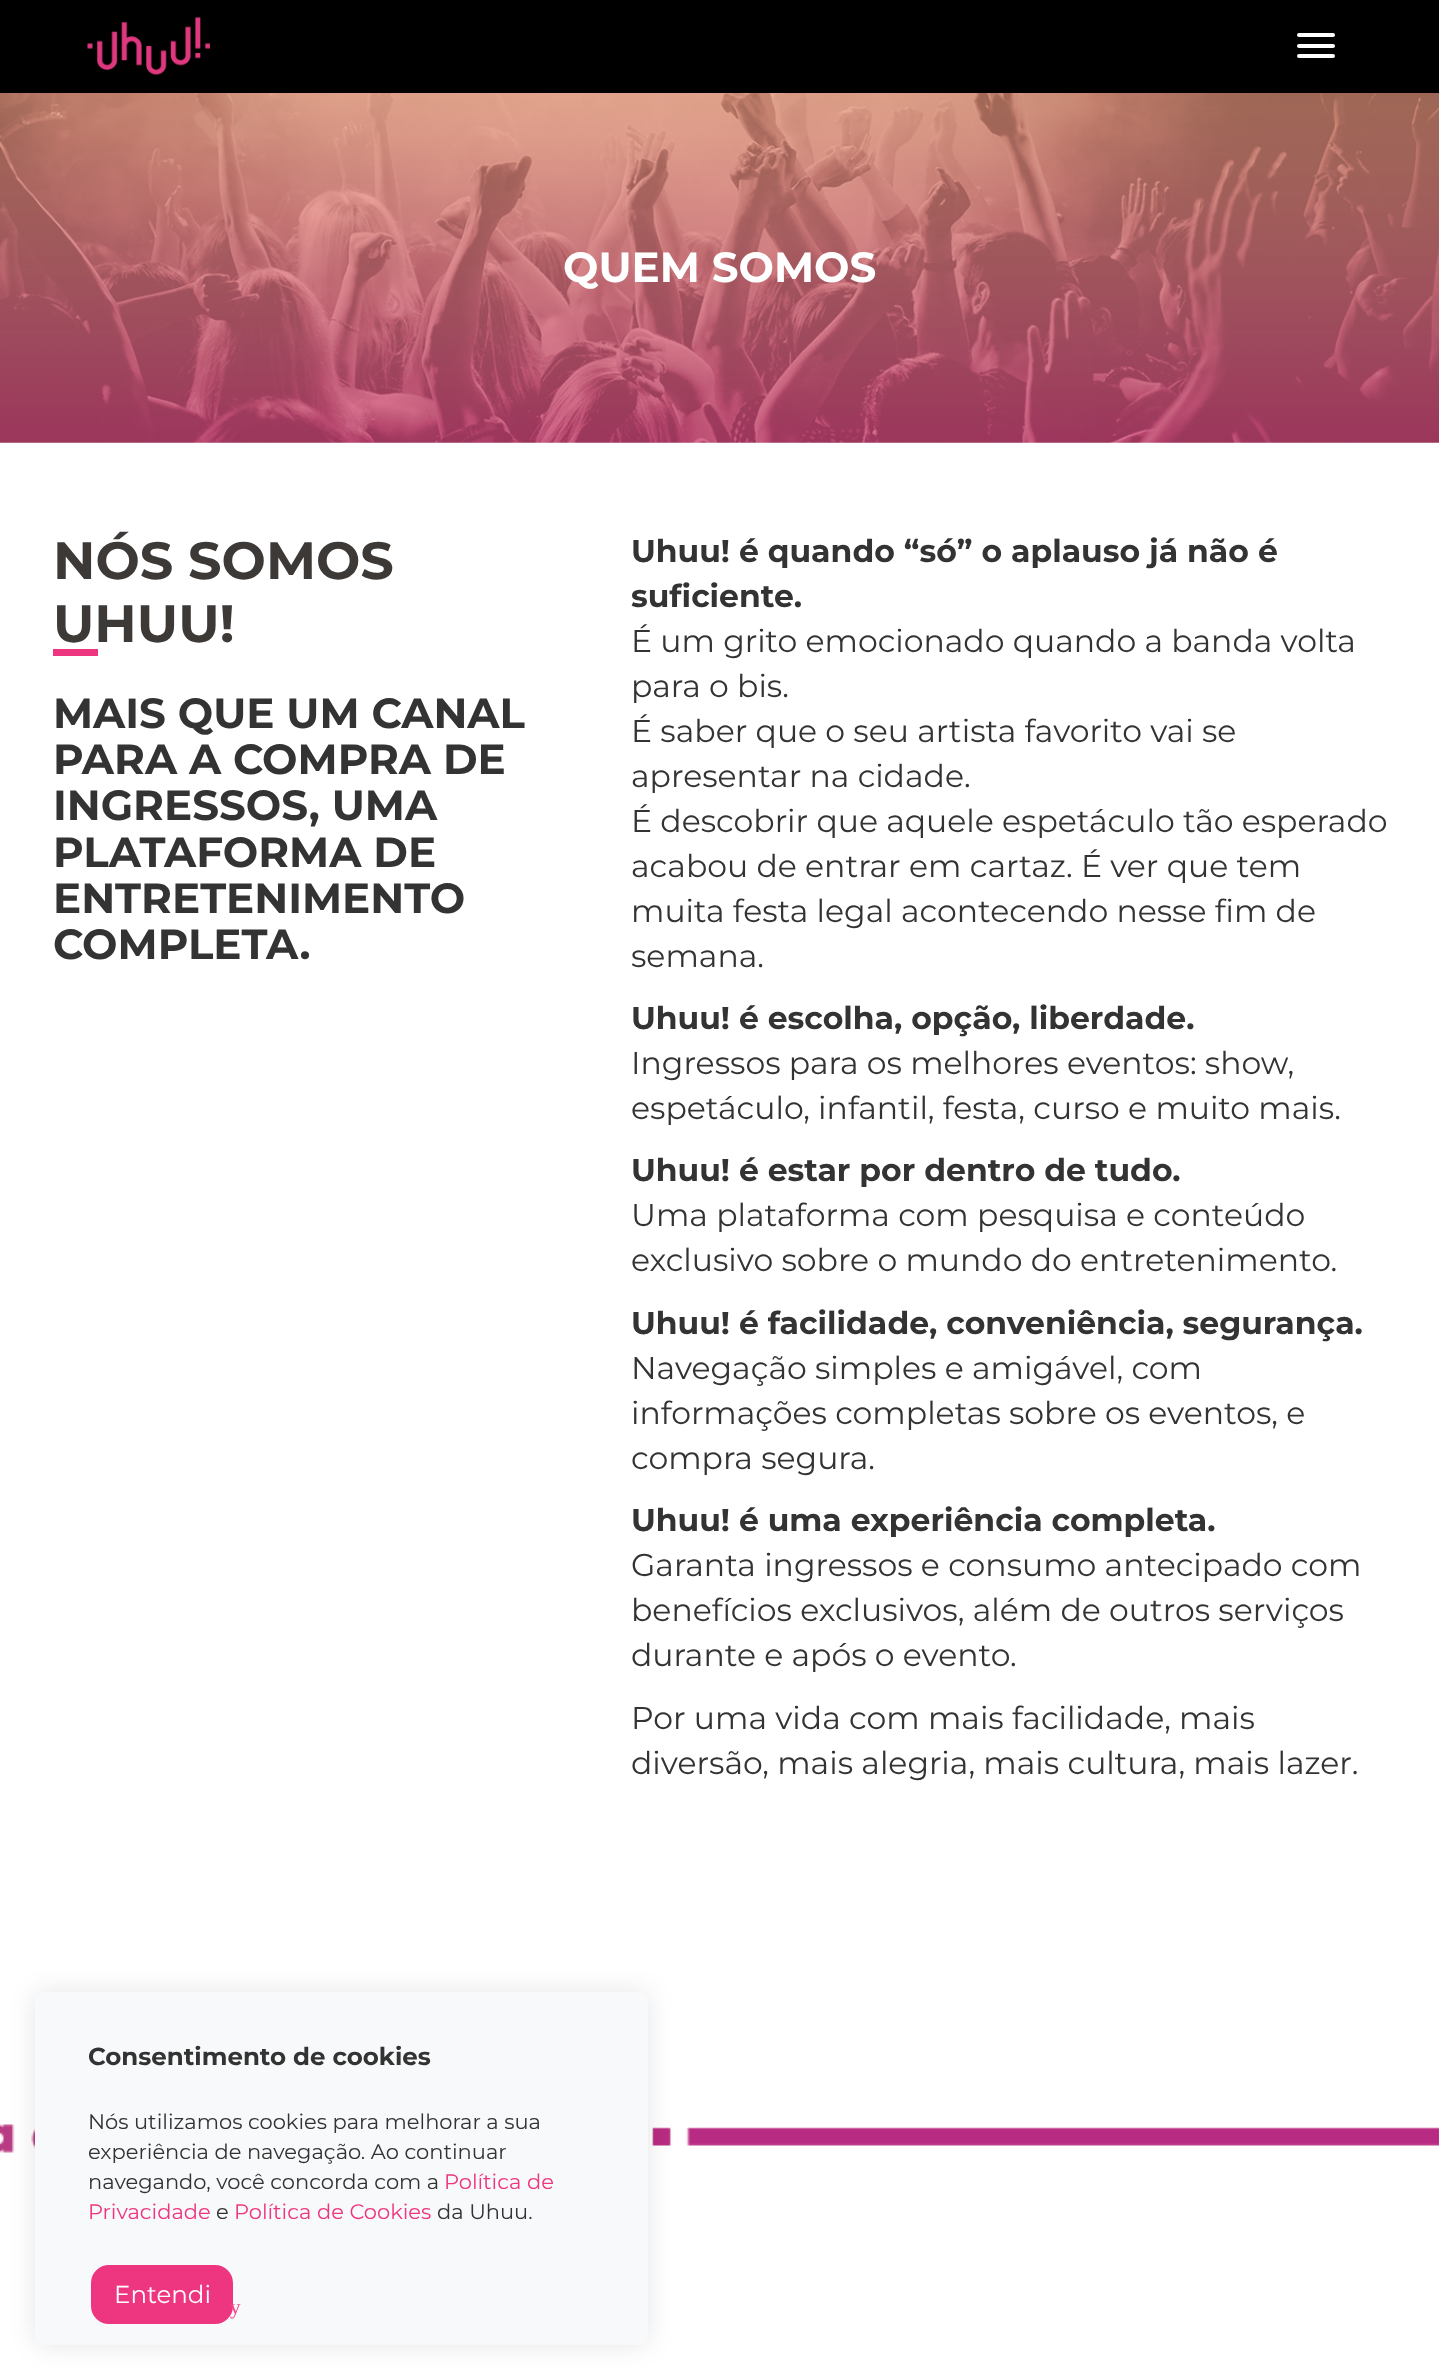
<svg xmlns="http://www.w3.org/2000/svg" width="1439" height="2380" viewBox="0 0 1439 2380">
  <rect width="100%" height="100%" fill="rgb(255,255,255)"/>
  <rect x="0" y="0" width="1439" height="93" fill="rgb(0,0,0)"/>
  <image x="87" y="17" width="123" height="58" href="pic1.png"/>
  <rect x="1297" y="33" width="38" height="4" rx="2" fill="rgb(255,255,255)"/>
  <rect x="1297" y="44" width="38" height="4" rx="2" fill="rgb(255,255,255)"/>
  <rect x="1297" y="54" width="38" height="4" rx="2" fill="rgb(255,255,255)"/>
  <image x="0" y="93" width="1439" height="350" href="pic2.png"/>
  <text x="563" y="282" font-family="Montserrat" font-size="42" font-weight="bold" fill="rgb(255,255,255)">QUEM SOMOS</text>
  <g font-family="Montserrat" font-size="52.5" font-weight="bold" fill="rgb(60,57,55)">
    <text>
      <tspan x="53" y="579">NÓS SOMOS</tspan>
      <tspan x="53" y="642">UHUU!</tspan>
    </text>
  </g>
  <rect x="53" y="649" width="45" height="7" fill="rgb(238,54,128)"/>
  <g font-family="Montserrat" font-size="42" font-weight="bold" fill="rgb(51,51,51)">
    <text>
      <tspan x="53" y="728">MAIS QUE UM CANAL</tspan>
      <tspan x="53" y="774">PARA A COMPRA DE</tspan>
      <tspan x="53" y="820">INGRESSOS, UMA</tspan>
      <tspan x="53" y="867">PLATAFORMA DE</tspan>
      <tspan x="53" y="913">ENTRETENIMENTO</tspan>
      <tspan x="53" y="959">COMPLETA.</tspan>
    </text>
  </g>
  <g font-family="Montserrat" font-size="31.5" font-weight="bold" fill="rgb(51,51,51)">
    <text>
      <tspan x="631" y="562">Uhuu! é quando “só” o aplauso já não é</tspan>
      <tspan x="631" y="607">suficiente.</tspan>
    </text>
  </g>
  <g font-family="Montserrat" font-size="31.5" fill="rgb(51,51,51)">
    <text>
      <tspan x="631" y="652">É um grito emocionado quando a banda volta</tspan>
      <tspan x="631" y="697">para o bis.</tspan>
      <tspan x="631" y="742">É saber que o seu artista favorito vai se</tspan>
      <tspan x="631" y="787">apresentar na cidade.</tspan>
      <tspan x="631" y="832">É descobrir que aquele espetáculo tão esperado</tspan>
      <tspan x="631" y="877">acabou de entrar em cartaz. É ver que tem</tspan>
      <tspan x="631" y="922">muita festa legal acontecendo nesse fim de</tspan>
      <tspan x="631" y="967">semana.</tspan>
    </text>
  </g>
  <text x="631" y="1029" font-family="Montserrat" font-size="31.5" font-weight="bold" fill="rgb(51,51,51)">Uhuu! é escolha, opção, liberdade.</text>
  <g font-family="Montserrat" font-size="31.5" fill="rgb(51,51,51)">
    <text>
      <tspan x="631" y="1074">Ingressos para os melhores eventos: show,</tspan>
      <tspan x="631" y="1119">espetáculo, infantil, festa, curso e muito mais.</tspan>
    </text>
  </g>
  <text x="631" y="1181" font-family="Montserrat" font-size="31.5" font-weight="bold" fill="rgb(51,51,51)">Uhuu! é estar por dentro de tudo.</text>
  <g font-family="Montserrat" font-size="31.5" fill="rgb(51,51,51)">
    <text>
      <tspan x="631" y="1226">Uma plataforma com pesquisa e conteúdo</tspan>
      <tspan x="631" y="1271">exclusivo sobre o mundo do entretenimento.</tspan>
    </text>
  </g>
  <text x="631" y="1334" font-family="Montserrat" font-size="31.5" font-weight="bold" fill="rgb(51,51,51)">Uhuu! é facilidade, conveniência, segurança.</text>
  <g font-family="Montserrat" font-size="31.5" fill="rgb(51,51,51)">
    <text>
      <tspan x="631" y="1379">Navegação simples e amigável, com</tspan>
      <tspan x="631" y="1424">informações completas sobre os eventos, e</tspan>
      <tspan x="631" y="1469">compra segura.</tspan>
    </text>
  </g>
  <text x="631" y="1531" font-family="Montserrat" font-size="31.5" font-weight="bold" fill="rgb(51,51,51)">Uhuu! é uma experiência completa.</text>
  <g font-family="Montserrat" font-size="31.5" fill="rgb(51,51,51)">
    <text>
      <tspan x="631" y="1576">Garanta ingressos e consumo antecipado com</tspan>
      <tspan x="631" y="1621">benefícios exclusivos, além de outros serviços</tspan>
      <tspan x="631" y="1666">durante e após o evento.</tspan>
    </text>
    <text>
      <tspan x="631" y="1729">Por uma vida com mais facilidade, mais</tspan>
      <tspan x="631" y="1774">diversão, mais alegria, mais cultura, mais lazer.</tspan>
    </text>
  </g>
  <image x="0" y="2124" width="1439" height="29" href="pic3.png"/>
  <rect x="35" y="1992" width="613" height="353" rx="9" fill="rgba(0,0,0,0.1)" filter="blur(13px)"/>
  <rect x="35" y="1992" width="613" height="353" rx="9" fill="rgb(248,249,250)"/>
  <text x="88" y="2065" font-family="Montserrat" font-size="24.5" font-weight="bold" fill="rgb(51,51,51)">Consentimento de cookies</text>
  <g font-family="Montserrat" font-size="21" fill="rgb(51,51,51)">
    <text>
      <tspan x="88" y="2129">Nós utilizamos cookies para melhorar a sua</tspan>
      <tspan x="88" y="2159">experiência de navegação. Ao continuar</tspan>
      <tspan x="88" y="2189">navegando, você concorda com a</tspan>
    </text>
  </g>
  <g font-family="Montserrat" font-size="21" fill="rgb(238,54,128)">
    <text x="444" y="2189">Política de</text>
    <text x="88" y="2219">Privacidade</text>
  </g>
  <text x="216" y="2219" font-family="Montserrat" font-size="21" fill="rgb(51,51,51)">e</text>
  <text x="234" y="2219" font-family="Montserrat" font-size="21" fill="rgb(238,54,128)">Política de Cookies</text>
  <text x="437" y="2219" font-family="Montserrat" font-size="21" fill="rgb(51,51,51)">da Uhuu.</text>
  <rect x="92" y="2266" width="140" height="57" rx="17" fill="rgb(238,54,128)" stroke="rgb(238,54,128)" stroke-width="2"/>
  <text x="114" y="2303" font-family="Montserrat" font-size="24.5" fill="rgb(255,255,255)">Entendi</text>
  <text x="230" y="2314" font-family="Liberation Serif" font-size="21" fill="rgb(239,69,138)">y</text>
</svg>
